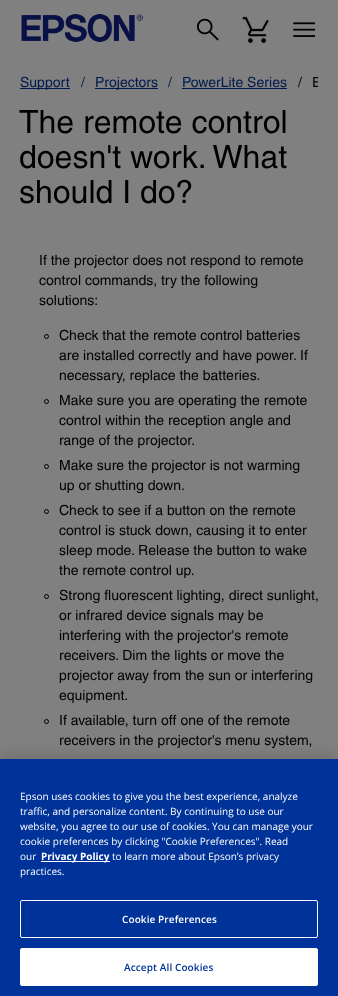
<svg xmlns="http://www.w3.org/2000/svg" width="338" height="996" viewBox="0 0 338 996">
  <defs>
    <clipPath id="clip1"><rect x="20" y="60" width="298" height="44"/></clipPath>
  </defs>
  <rect width="100%" height="100%" fill="rgb(128,128,128)"/>
  <image x="21" y="14" width="122" height="28" href="pic1.png"/>
  <image x="197" y="18" width="22" height="23" href="pic2.png"/>
  <image x="242" y="16" width="27" height="28" href="pic3.png"/>
  <image x="293" y="22" width="23" height="15" href="pic4.png"/>
  <rect x="20" y="88" width="50" height="1" fill="rgb(0,26,77)"/>
  <g font-family="Helvetica" font-size="14" fill="rgb(0,26,77)">
    <text x="20" y="87">Support</text>
    <text x="81" y="87">/</text>
  </g>
  <rect x="95" y="88" width="63" height="1" fill="rgb(0,26,77)"/>
  <g font-family="Helvetica" font-size="14" fill="rgb(0,26,77)">
    <text x="95" y="87">Projectors</text>
    <text x="168" y="87">/</text>
    <text x="182" y="87">PowerLite Series</text>
  </g>
  <rect x="182" y="88" width="105" height="1" fill="rgb(0,26,77)"/>
  <text x="298" y="87" font-family="Helvetica" font-size="14" fill="rgb(0,0,0)">/</text>
  <g clip-path="url(#clip1)">
    <text x="312" y="87" font-family="Helvetica" font-size="14" fill="rgb(0,0,0)">E</text>
  </g>
  <g font-family="Helvetica" font-size="32" fill="rgb(0,0,0)">
    <text>
      <tspan x="19" y="133">The remote control</tspan>
      <tspan x="19" y="168">doesn't work. What</tspan>
      <tspan x="19" y="203">should I do?</tspan>
    </text>
  </g>
  <g font-family="Helvetica" font-size="14" fill="rgb(0,0,0)">
    <text>
      <tspan x="39" y="265">If the projector does not respond to remote</tspan>
      <tspan x="39" y="285">control commands, try the following</tspan>
      <tspan x="39" y="305">solutions:</tspan>
    </text>
  </g>
  <circle cx="46.5" cy="336.5" r="2" fill="none" stroke="rgb(0,0,0)"/>
  <g font-family="Helvetica" font-size="14" fill="rgb(0,0,0)">
    <text>
      <tspan x="59" y="340">Check that the remote control batteries</tspan>
      <tspan x="59" y="360">are installed correctly and have power. If</tspan>
      <tspan x="59" y="380">necessary, replace the batteries.</tspan>
    </text>
  </g>
  <circle cx="46.5" cy="401.5" r="2" fill="none" stroke="rgb(0,0,0)"/>
  <g font-family="Helvetica" font-size="14" fill="rgb(0,0,0)">
    <text>
      <tspan x="59" y="405">Make sure you are operating the remote</tspan>
      <tspan x="59" y="425">control within the reception angle and</tspan>
      <tspan x="59" y="445">range of the projector.</tspan>
    </text>
  </g>
  <circle cx="46.5" cy="466.5" r="2" fill="none" stroke="rgb(0,0,0)"/>
  <g font-family="Helvetica" font-size="14" fill="rgb(0,0,0)">
    <text>
      <tspan x="59" y="470">Make sure the projector is not warming</tspan>
      <tspan x="59" y="490">up or shutting down.</tspan>
    </text>
  </g>
  <circle cx="46.5" cy="511.5" r="2" fill="none" stroke="rgb(0,0,0)"/>
  <g font-family="Helvetica" font-size="14" fill="rgb(0,0,0)">
    <text>
      <tspan x="59" y="515">Check to see if a button on the remote</tspan>
      <tspan x="59" y="535">control is stuck down, causing it to enter</tspan>
      <tspan x="59" y="555">sleep mode. Release the button to wake</tspan>
      <tspan x="59" y="575">the remote control up.</tspan>
    </text>
  </g>
  <circle cx="46.5" cy="596.5" r="2" fill="none" stroke="rgb(0,0,0)"/>
  <g font-family="Helvetica" font-size="14" fill="rgb(0,0,0)">
    <text>
      <tspan x="59" y="600">Strong fluorescent lighting, direct sunlight,</tspan>
      <tspan x="59" y="620">or infrared device signals may be</tspan>
      <tspan x="59" y="640">interfering with the projector's remote</tspan>
      <tspan x="59" y="660">receivers. Dim the lights or move the</tspan>
      <tspan x="59" y="680">projector away from the sun or interfering</tspan>
      <tspan x="59" y="700">equipment.</tspan>
    </text>
  </g>
  <circle cx="46.5" cy="721.5" r="2" fill="none" stroke="rgb(0,0,0)"/>
  <g font-family="Helvetica" font-size="14" fill="rgb(0,0,0)">
    <text>
      <tspan x="59" y="725">If available, turn off one of the remote</tspan>
      <tspan x="59" y="745">receivers in the projector's menu system,</tspan>
    </text>
  </g>
  <rect x="0" y="759" width="338" height="237" fill="rgba(0,0,0,0.2)" filter="blur(9px)"/>
  <rect x="0" y="759" width="338" height="237" fill="rgb(0,51,153)"/>
  <g font-family="Open Sans" font-size="10" fill="rgb(255,255,255)">
    <text>
      <tspan x="20" y="800">Epson uses cookies to give you the best experience, analyze</tspan>
      <tspan x="20" y="815">traffic, and personalize content. By continuing to use our</tspan>
      <tspan x="20" y="830">website, you agree to our use of cookies. You can manage your</tspan>
      <tspan x="20" y="845">cookie preferences by clicking "Cookie Preferences". Read</tspan>
      <tspan x="20" y="860">our</tspan>
    </text>
  </g>
  <rect x="41" y="861" width="69" height="1" fill="rgb(255,255,255)"/>
  <text x="41" y="860" font-family="Open Sans" font-size="10" font-weight="bold" fill="rgb(255,255,255)">Privacy Policy</text>
  <g font-family="Open Sans" font-size="10" fill="rgb(255,255,255)">
    <text x="112" y="860">to learn more about Epson’s privacy</text>
    <text x="20" y="875">practices.</text>
  </g>
  <rect x="20.5" y="900.5" width="297" height="37" rx="1.5" fill="none" stroke="rgb(255,255,255)"/>
  <text x="122" y="923" font-family="Open Sans" font-size="10" font-weight="600" letter-spacing="0.1" fill="rgb(255,255,255)">Cookie Preferences</text>
  <rect x="20.5" y="948.5" width="297" height="37" rx="1.5" fill="rgb(255,255,255)" stroke="rgb(255,255,255)"/>
  <text x="124" y="971" font-family="Open Sans" font-size="10" font-weight="600" letter-spacing="0.1" fill="rgb(0,51,153)">Accept All Cookies</text>
</svg>
